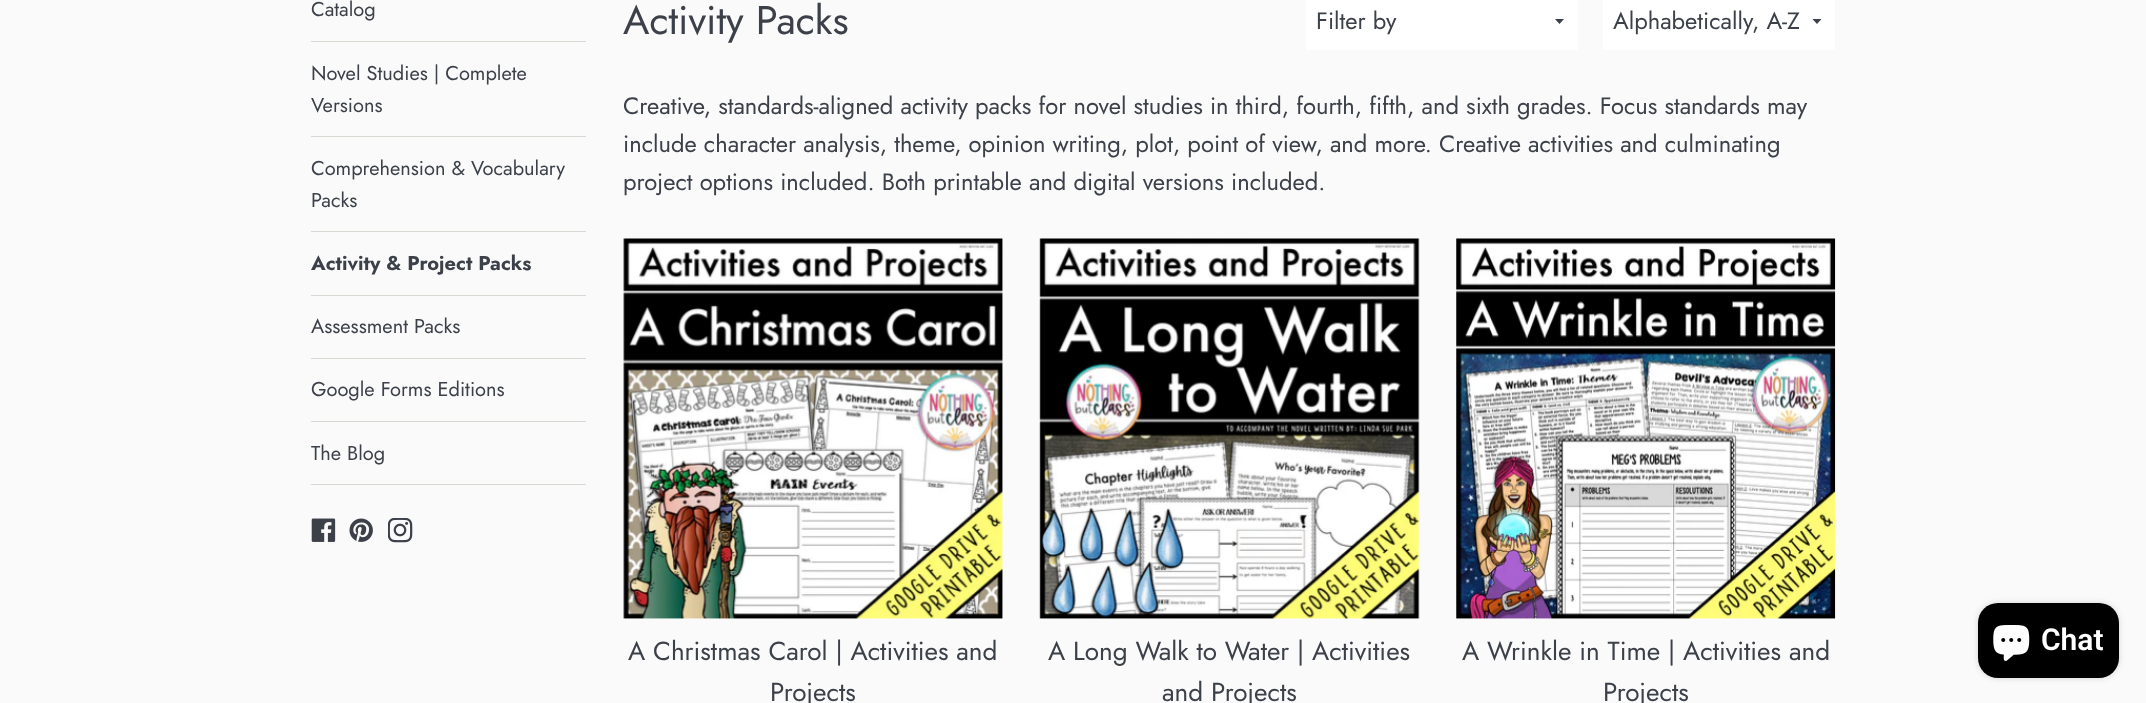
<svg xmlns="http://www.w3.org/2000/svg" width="2146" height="703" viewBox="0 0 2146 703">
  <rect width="100%" height="100%" fill="rgb(250,250,250)"/>
  <rect x="311" y="41" width="275" height="1" fill="rgb(215,216,210)"/>
  <text x="311" y="16" font-family="Jost" font-size="20" fill="rgb(60,64,73)">Catalog</text>
  <rect x="311" y="136" width="275" height="1" fill="rgb(215,216,210)"/>
  <g font-family="Jost" font-size="20" fill="rgb(60,64,73)">
    <text>
      <tspan x="311" y="80">Novel Studies | Complete</tspan>
      <tspan x="311" y="112">Versions</tspan>
    </text>
  </g>
  <rect x="311" y="231" width="275" height="1" fill="rgb(215,216,210)"/>
  <g font-family="Jost" font-size="20" fill="rgb(60,64,73)">
    <text>
      <tspan x="311" y="175">Comprehension &amp; Vocabulary</tspan>
      <tspan x="311" y="207">Packs</tspan>
    </text>
  </g>
  <rect x="311" y="295" width="275" height="1" fill="rgb(215,216,210)"/>
  <text x="311" y="270" font-family="Jost" font-size="20" font-weight="bold" fill="rgb(60,64,73)">Activity &amp; Project Packs</text>
  <rect x="311" y="358" width="275" height="1" fill="rgb(215,216,210)"/>
  <text x="311" y="333" font-family="Jost" font-size="20" fill="rgb(60,64,73)">Assessment Packs</text>
  <rect x="311" y="421" width="275" height="1" fill="rgb(215,216,210)"/>
  <text x="311" y="396" font-family="Jost" font-size="20" fill="rgb(60,64,73)">Google Forms Editions</text>
  <rect x="311" y="484" width="275" height="1" fill="rgb(215,216,210)"/>
  <text x="311" y="460" font-family="Jost" font-size="20" fill="rgb(60,64,73)">The Blog</text>
  <image x="311" y="518" width="25" height="24" href="pic1.png"/>
  <image x="349" y="518" width="24" height="24" href="pic2.png"/>
  <image x="388" y="518" width="25" height="25" href="pic3.png"/>
  <text x="623" y="34" font-family="Jost" font-size="40" fill="rgb(60,64,73)">Activity Packs</text>
  <rect x="1306" y="0" width="272" height="50" fill="rgb(255,255,255)"/>
  <path d="M1555 19L1559.5 24L1564 19Z" fill="rgb(60,64,73)"/>
  <text x="1316" y="29" font-family="Jost" font-size="23.75" fill="rgb(60,64,73)">Filter by</text>
  <rect x="1603" y="0" width="232" height="50" fill="rgb(255,255,255)"/>
  <path d="M1812.5 19L1817 24L1821.5 19Z" fill="rgb(60,64,73)"/>
  <g font-family="Jost" font-size="23.75" fill="rgb(60,64,73)">
    <text x="1613" y="29">Alphabetically, A-Z</text>
    <text>
      <tspan x="623" y="114">Creative, standards-aligned activity packs for novel studies in third, fourth, fifth, and sixth grades. Focus standards may</tspan>
      <tspan x="623" y="152">include character analysis, theme, opinion writing, plot, point of view, and more. Creative activities and culminating</tspan>
      <tspan x="623" y="190">project options included. Both printable and digital versions included.</tspan>
    </text>
  </g>
  <image x="623" y="238" width="380" height="381" href="pic4.png"/>
  <g font-family="Jost" font-size="26.1" fill="rgb(60,64,73)">
    <text x="628" y="660">A Christmas Carol | Activities and</text>
    <text x="770" y="701">Projects</text>
  </g>
  <image x="1039" y="238" width="381" height="381" href="pic5.png"/>
  <g font-family="Jost" font-size="26.1" fill="rgb(60,64,73)">
    <text x="1048" y="660">A Long Walk to Water | Activities</text>
    <text x="1162" y="701">and Projects</text>
  </g>
  <image x="1456" y="238" width="380" height="381" href="pic6.png"/>
  <g font-family="Jost" font-size="26.1" fill="rgb(60,64,73)">
    <text x="1462" y="660">A Wrinkle in Time | Activities and</text>
    <text x="1603" y="701">Projects</text>
  </g>
  <rect x="1978" y="603" width="141" height="75" rx="20" fill="rgba(0,0,0,0.15)" filter="blur(3px)"/>
  <rect x="1978" y="603" width="141" height="75" rx="20" fill="rgb(0,0,0)"/>
  <image x="1993" y="625" width="37" height="36" href="pic7.png"/>
  <text x="2041" y="650" font-family="Roboto" font-size="30" font-weight="600" fill="rgb(255,255,255)">Chat</text>
</svg>
